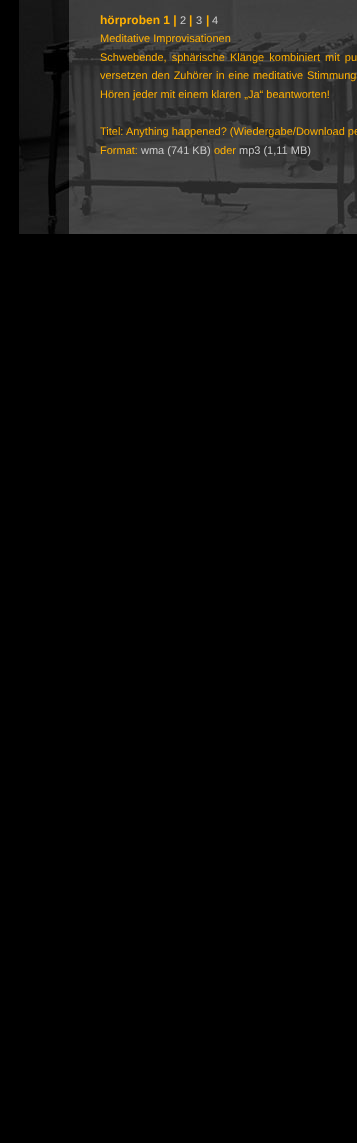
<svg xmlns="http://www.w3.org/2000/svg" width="357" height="1143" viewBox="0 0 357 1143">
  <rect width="100%" height="100%" fill="rgb(0,0,0)"/>
  <image x="19" y="0" width="338" height="234" href="pic1.png"/>
  <text x="100" y="24" font-family="Liberation Sans" font-size="12" font-weight="bold" fill="rgb(255,176,0)">hörproben 1 |</text>
  <text x="180" y="24" font-family="Liberation Sans" font-size="11" fill="rgb(204,204,204)">2</text>
  <text x="189" y="24" font-family="Liberation Sans" font-size="12" font-weight="bold" fill="rgb(255,176,0)">|</text>
  <text x="196" y="24" font-family="Liberation Sans" font-size="11" fill="rgb(204,204,204)">3</text>
  <text x="206" y="24" font-family="Liberation Sans" font-size="12" font-weight="bold" fill="rgb(255,176,0)">|</text>
  <text x="212" y="24" font-family="Liberation Sans" font-size="11" fill="rgb(204,204,204)">4</text>
  <g font-family="Liberation Sans" font-size="11" fill="rgb(255,176,0)">
    <text>
      <tspan x="100" y="42">Meditative Improvisationen</tspan>
      <tspan x="100" y="61" word-spacing="2">Schwebende, sphärische Klänge kombiniert mit pu</tspan>
      <tspan x="100" y="79" word-spacing="0.75">versetzen den Zuhörer in eine meditative Stimmung</tspan>
      <tspan x="100" y="98">Hören jeder mit einem klaren „Ja“ beantworten!</tspan>
    </text>
    <text>
      <tspan x="100" y="135">Titel: Anything happened? (Wiedergabe/Download pe</tspan>
      <tspan x="100" y="154">Format:</tspan>
    </text>
  </g>
  <text x="141" y="154" font-family="Liberation Sans" font-size="11" fill="rgb(204,204,204)">wma (741 KB)</text>
  <text x="214" y="154" font-family="Liberation Sans" font-size="11" fill="rgb(255,176,0)">oder</text>
  <text x="239" y="154" font-family="Liberation Sans" font-size="11" fill="rgb(204,204,204)">mp3 (1,11 MB)</text>
</svg>
